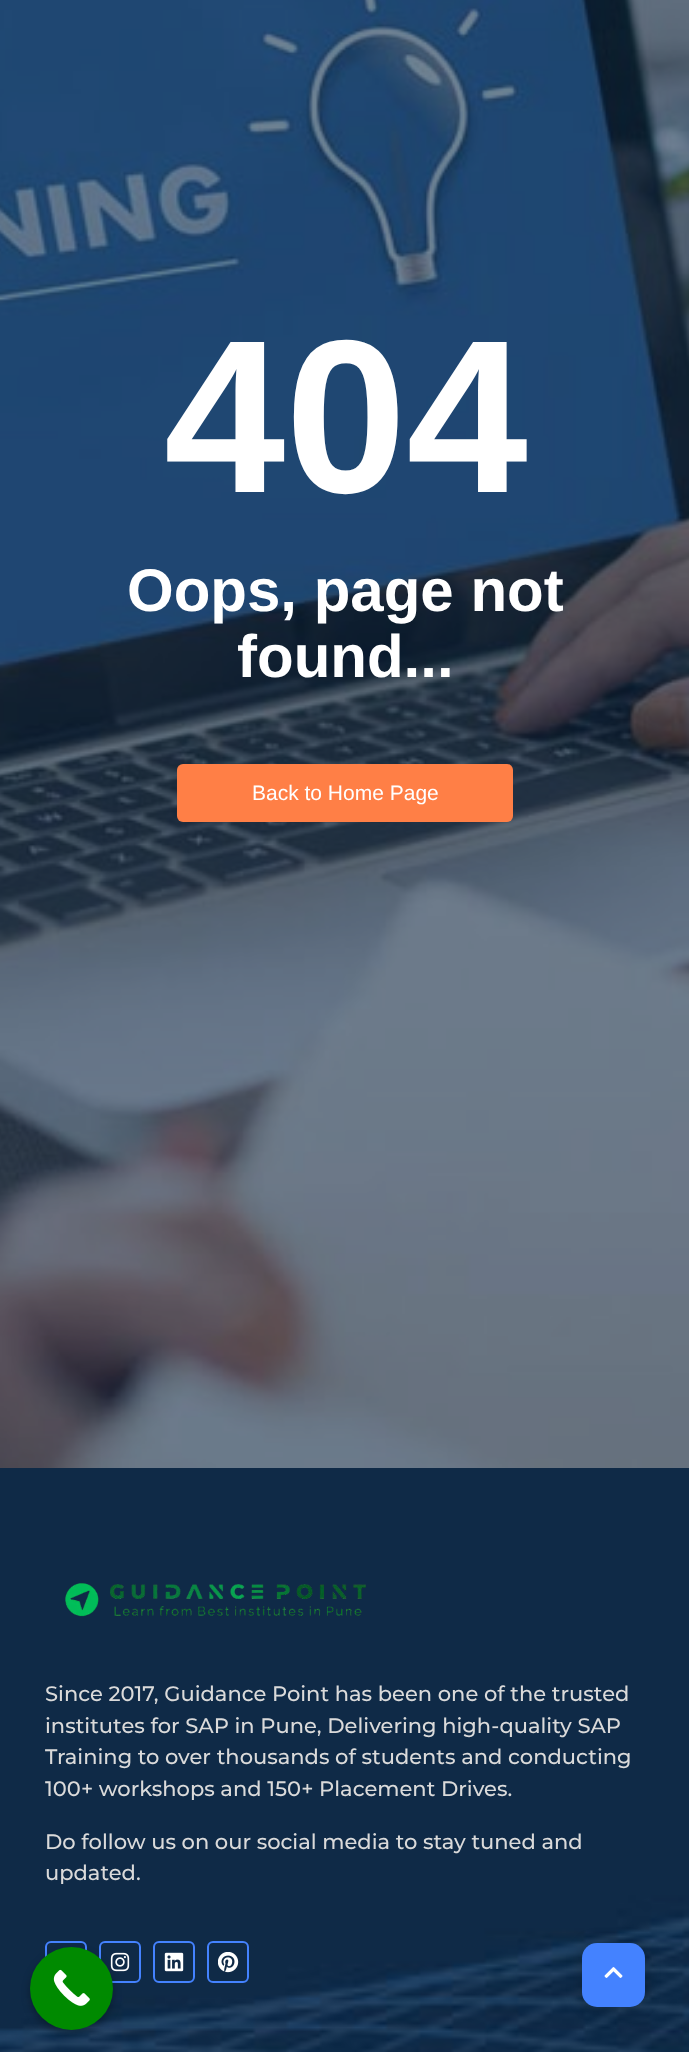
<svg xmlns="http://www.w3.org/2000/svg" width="689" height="2052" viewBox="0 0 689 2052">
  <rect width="100%" height="100%" fill="rgb(255,255,255)"/>
  <image x="0" y="0" width="689" height="1468" href="pic1.png"/>
  <text x="164" y="492" font-family="Liberation Sans" font-size="218" font-weight="bold" fill="rgb(255,255,255)">404</text>
  <g font-family="Liberation Sans" font-size="60" font-weight="bold" fill="rgb(255,255,255)">
    <text x="127" y="611">Oops, page not</text>
    <text x="237" y="677">found...</text>
  </g>
  <rect x="177" y="764" width="336" height="58" rx="6" fill="rgb(255,127,70)"/>
  <text x="252" y="800" font-family="Liberation Sans" font-size="21" fill="rgb(255,255,255)">Back to Home Page</text>
  <image x="0" y="1468" width="689" height="584" href="pic2.png"/>
  <image x="65" y="1583" width="301" height="34" href="pic3.png"/>
  <g font-family="Montserrat" font-size="21" font-weight="500" fill="rgb(218,218,218)">
    <text>
      <tspan x="45" y="1701">Since 2017, Guidance Point has been one of the trusted</tspan>
      <tspan x="45" y="1733">institutes for SAP in Pune, Delivering high-quality SAP</tspan>
      <tspan x="45" y="1764">Training to over thousands of students and conducting</tspan>
      <tspan x="45" y="1796">100+ workshops and 150+ Placement Drives.</tspan>
    </text>
    <text>
      <tspan x="45" y="1849">Do follow us on our social media to stay tuned and</tspan>
      <tspan x="45" y="1880">updated.</tspan>
    </text>
  </g>
  <rect x="46" y="1942" width="40" height="40" rx="5" fill="none" stroke="rgb(68,130,255)" stroke-width="2"/>
  <rect x="100" y="1942" width="40" height="40" rx="5" fill="none" stroke="rgb(68,130,255)" stroke-width="2"/>
  <image x="110" y="1952" width="20" height="20" href="pic4.png"/>
  <rect x="154" y="1942" width="40" height="40" rx="5" fill="none" stroke="rgb(68,130,255)" stroke-width="2"/>
  <image x="164" y="1952" width="20" height="20" href="pic5.png"/>
  <rect x="208" y="1942" width="40" height="40" rx="5" fill="none" stroke="rgb(68,130,255)" stroke-width="2"/>
  <image x="218" y="1952" width="21" height="21" href="pic6.png"/>
  <rect x="582" y="1943" width="63" height="64" rx="15" fill="rgba(0,0,0,0.25)" filter="blur(7.5px)"/>
  <rect x="582" y="1943" width="63" height="64" rx="15" fill="rgb(68,130,255)"/>
  <image x="604" y="1967" width="19" height="11" href="pic7.png"/>
  <rect x="30" y="1952" width="83" height="82" rx="41" fill="rgba(0,0,0,0.3)" filter="blur(4.5px)"/>
  <circle cx="71.5" cy="1988.5" r="41.5" fill="rgb(0,138,0)"/>
  <image x="53" y="1969" width="37" height="37" href="pic8.png"/>
</svg>
